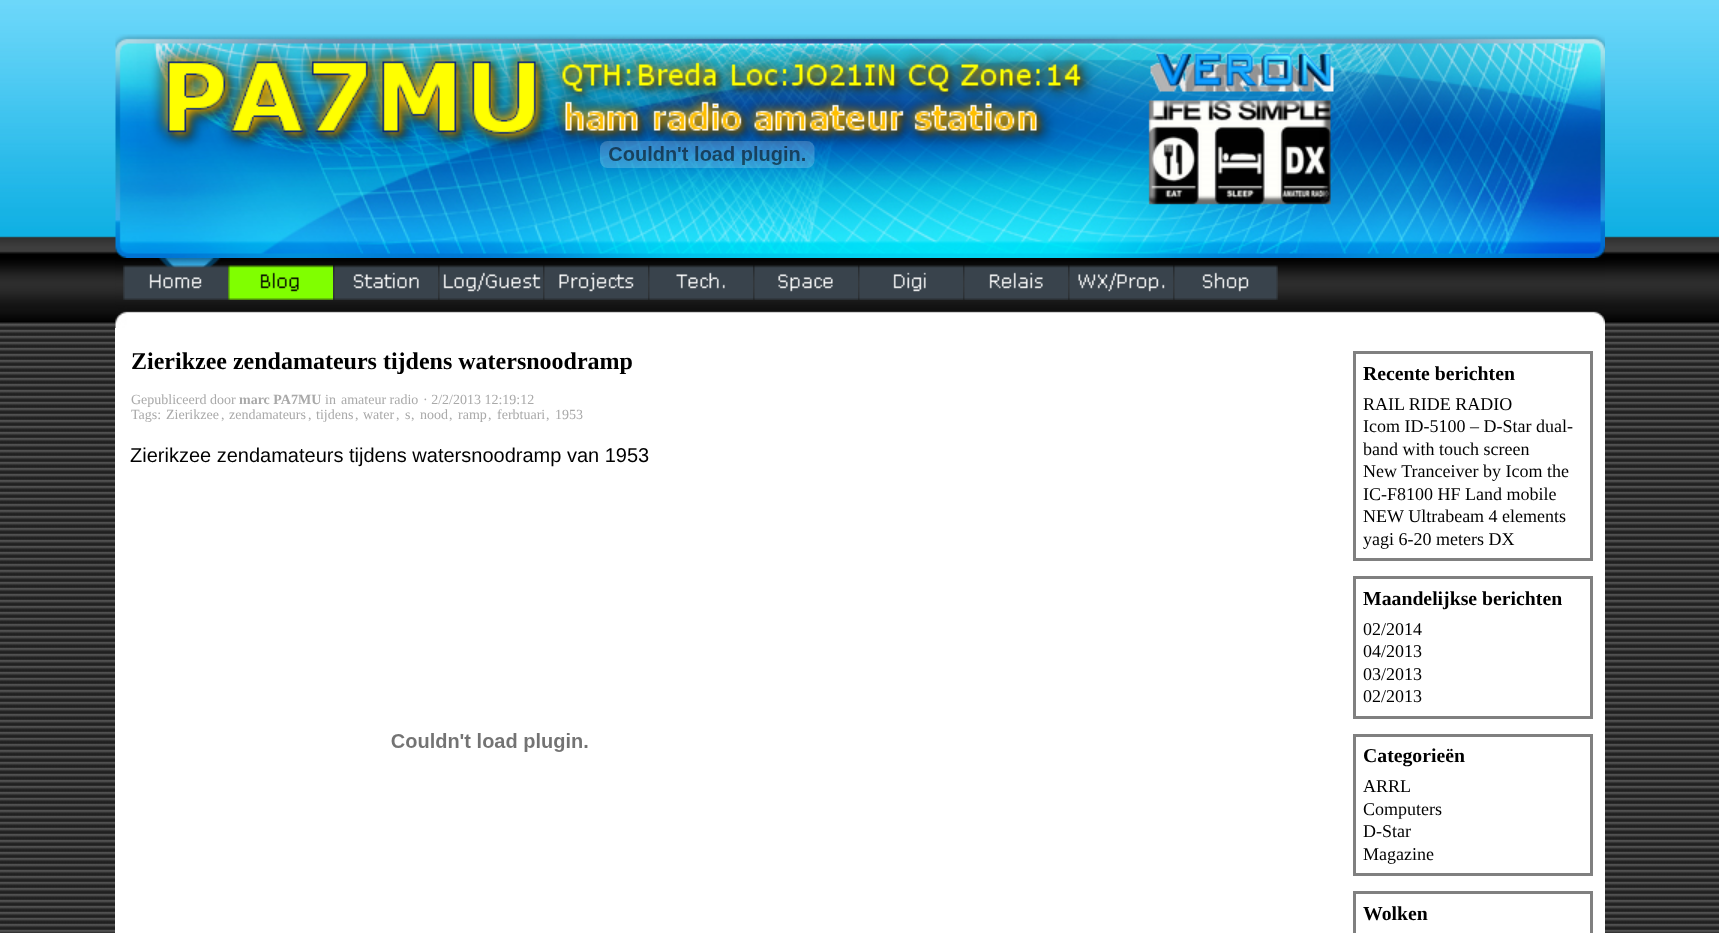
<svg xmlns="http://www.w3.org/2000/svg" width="1719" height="933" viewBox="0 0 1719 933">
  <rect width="100%" height="100%" fill="rgb(255,255,255)"/>
  <image x="0" y="0" width="1719" height="933" href="pic1.png"/>
  <image x="115" y="34" width="1490" height="224" href="pic2.png"/>
  <image x="600" y="141" width="215" height="27" href="pic3.png"/>
  <image x="115" y="258" width="1490" height="70" href="pic4.png"/>
  <image x="123" y="265" width="105" height="35" href="pic5.png"/>
  <image x="228" y="265" width="105" height="35" href="pic6.png"/>
  <image x="333" y="265" width="105" height="35" href="pic7.png"/>
  <image x="438" y="265" width="105" height="35" href="pic8.png"/>
  <image x="543" y="265" width="105" height="35" href="pic9.png"/>
  <image x="648" y="265" width="105" height="35" href="pic10.png"/>
  <image x="753" y="265" width="105" height="35" href="pic11.png"/>
  <image x="858" y="265" width="105" height="35" href="pic12.png"/>
  <image x="963" y="265" width="105" height="35" href="pic13.png"/>
  <image x="1068" y="265" width="105" height="35" href="pic14.png"/>
  <image x="1173" y="265" width="105" height="35" href="pic15.png"/>
  <rect x="115" y="328" width="1490" height="605" fill="rgb(255,255,255)"/>
  <text x="131" y="369" font-family="Liberation Serif" font-size="24" font-weight="bold" fill="rgb(0,0,0)">Zierikzee zendamateurs tijdens watersnoodramp</text>
  <text x="131" y="404" font-family="Liberation Serif" font-size="14" fill="rgb(169,169,169)">Gepubliceerd door</text>
  <text x="239" y="404" font-family="Liberation Serif" font-size="14" font-weight="bold" fill="rgb(169,169,169)">marc PA7MU</text>
  <g font-family="Liberation Serif" font-size="14" fill="rgb(169,169,169)">
    <text x="325" y="404">in</text>
    <text x="341" y="404">amateur radio</text>
    <text x="423" y="404">· 2/2/2013 12:19:12</text>
    <text x="131" y="419">Tags:</text>
    <text x="166" y="419">Zierikzee</text>
    <text x="221" y="419">,</text>
    <text x="229" y="419">zendamateurs</text>
    <text x="308" y="419">,</text>
    <text x="316" y="419">tijdens</text>
    <text x="355" y="419">,</text>
    <text x="363" y="419">water</text>
    <text x="396" y="419">,</text>
    <text x="405" y="419">s</text>
    <text x="411" y="419">,</text>
    <text x="420" y="419">nood</text>
    <text x="449" y="419">,</text>
    <text x="458" y="419">ramp</text>
    <text x="488" y="419">,</text>
    <text x="497" y="419">ferbtuari</text>
    <text x="546" y="419">,</text>
    <text x="555" y="419">1953</text>
  </g>
  <text x="130" y="462" font-family="Liberation Sans" font-size="20" fill="rgb(0,0,0)">Zierikzee zendamateurs tijdens watersnoodramp van 1953</text>
  <image x="391" y="733" width="197" height="19" href="pic16.png"/>
  <rect x="1354.5" y="352.5" width="237" height="207" fill="none" stroke="rgb(128,128,128)" stroke-width="3"/>
  <text x="1363" y="380" font-family="Liberation Serif" font-size="19.75" font-weight="bold" fill="rgb(0,0,0)">Recente berichten</text>
  <g font-family="Liberation Serif" font-size="18" fill="rgb(0,0,0)">
    <text>
      <tspan x="1363" y="410">RAIL RIDE RADIO</tspan>
      <tspan x="1363" y="432">Icom ID-5100 – D-Star dual-</tspan>
      <tspan x="1363" y="455">band with touch screen</tspan>
      <tspan x="1363" y="477">New Tranceiver by Icom the</tspan>
      <tspan x="1363" y="500">IC-F8100 HF Land mobile</tspan>
      <tspan x="1363" y="522">NEW Ultrabeam 4 elements</tspan>
      <tspan x="1363" y="545">yagi 6-20 meters DX</tspan>
    </text>
  </g>
  <rect x="1354.5" y="577.5" width="237" height="140" fill="none" stroke="rgb(128,128,128)" stroke-width="3"/>
  <text x="1363" y="605" font-family="Liberation Serif" font-size="19.75" font-weight="bold" fill="rgb(0,0,0)">Maandelijkse berichten</text>
  <g font-family="Liberation Serif" font-size="18" fill="rgb(0,0,0)">
    <text>
      <tspan x="1363" y="635">02/2014</tspan>
      <tspan x="1363" y="657">04/2013</tspan>
      <tspan x="1363" y="680">03/2013</tspan>
      <tspan x="1363" y="702">02/2013</tspan>
    </text>
  </g>
  <rect x="1354.5" y="735.5" width="237" height="139" fill="none" stroke="rgb(128,128,128)" stroke-width="3"/>
  <text x="1363" y="762" font-family="Liberation Serif" font-size="19.75" font-weight="bold" fill="rgb(0,0,0)">Categorieën</text>
  <g font-family="Liberation Serif" font-size="18" fill="rgb(0,0,0)">
    <text>
      <tspan x="1363" y="792">ARRL</tspan>
      <tspan x="1363" y="815">Computers</tspan>
      <tspan x="1363" y="837">D-Star</tspan>
      <tspan x="1363" y="860">Magazine</tspan>
    </text>
  </g>
  <rect x="1354.5" y="892.5" width="237" height="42" fill="none" stroke="rgb(128,128,128)" stroke-width="3"/>
  <text x="1363" y="920" font-family="Liberation Serif" font-size="19.75" font-weight="bold" fill="rgb(0,0,0)">Wolken</text>
</svg>
